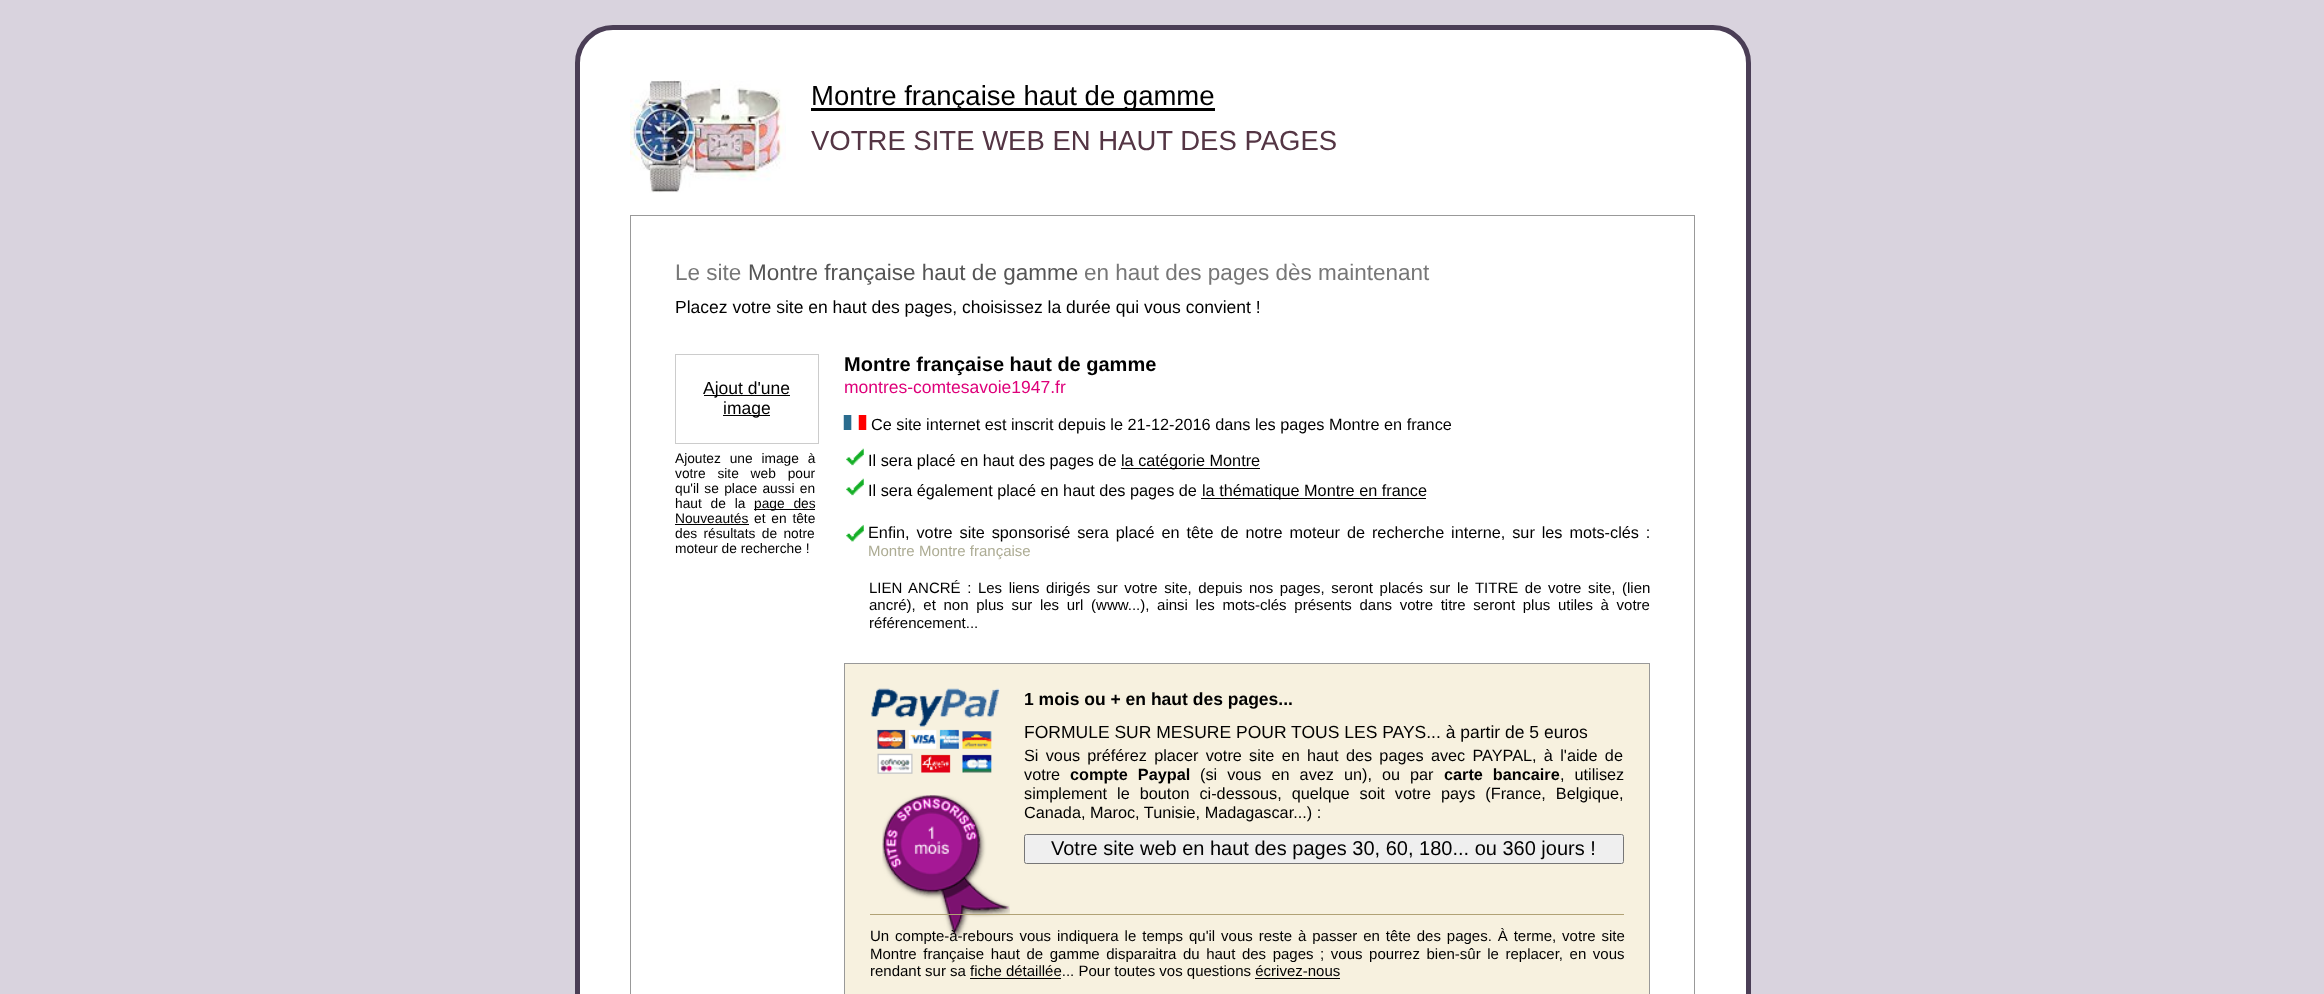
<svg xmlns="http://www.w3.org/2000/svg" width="2324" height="994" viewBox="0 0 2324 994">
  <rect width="100%" height="100%" fill="rgb(217,211,222)"/>
  <rect x="577.5" y="27.5" width="1171" height="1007" rx="35.5" fill="rgb(255,255,255)" stroke="rgb(75,62,86)" stroke-width="5"/>
  <image x="630" y="80" width="156" height="113" href="pic1.png"/>
  <rect x="811" y="108" width="404" height="3" fill="rgb(0,0,0)"/>
  <text x="811" y="105" font-family="Liberation Sans" font-size="27.5" fill="rgb(0,0,0)">Montre française haut de gamme</text>
  <text x="811" y="150" font-family="Liberation Sans" font-size="27.5" fill="rgb(84,53,68)">VOTRE SITE WEB EN HAUT DES PAGES</text>
  <rect x="630.5" y="215.5" width="1064" height="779" fill="none" stroke="rgb(153,153,153)"/>
  <text x="675" y="280" font-family="Liberation Sans" font-size="22.5" fill="rgb(119,119,119)">Le site</text>
  <text x="748" y="280" font-family="Liberation Sans" font-size="22.5" fill="rgb(85,85,85)">Montre française haut de gamme</text>
  <text x="1084" y="280" font-family="Liberation Sans" font-size="22.5" fill="rgb(119,119,119)">en haut des pages dès maintenant</text>
  <text x="675" y="313" font-family="Liberation Sans" font-size="17.5" fill="rgb(0,0,0)">Placez votre site en haut des pages, choisissez la durée qui vous convient !</text>
  <rect x="675.5" y="354.5" width="143" height="89" fill="none" stroke="rgb(204,204,204)"/>
  <rect x="704" y="395" width="86" height="1" fill="rgb(0,0,0)"/>
  <text x="703" y="394" font-family="Liberation Sans" font-size="17.5" fill="rgb(0,0,0)">Ajout d'une</text>
  <rect x="723" y="415" width="47" height="1" fill="rgb(0,0,0)"/>
  <text x="723" y="414" font-family="Liberation Sans" font-size="17.5" fill="rgb(0,0,0)">image</text>
  <g font-family="Liberation Sans" font-size="13.75" fill="rgb(0,0,0)">
    <text>
      <tspan x="675" y="463" word-spacing="5">Ajoutez une image à</tspan>
      <tspan x="675" y="478" word-spacing="8">votre site web pour</tspan>
      <tspan x="675" y="493" word-spacing="1.5">qu'il se place aussi en</tspan>
      <tspan x="675" y="508" word-spacing="5">haut de la</tspan>
    </text>
  </g>
  <rect x="754" y="509" width="61" height="1" fill="rgb(0,0,0)"/>
  <g font-family="Liberation Sans" font-size="13.75" fill="rgb(0,0,0)">
    <text x="754" y="508" word-spacing="5">page des</text>
    <text x="675" y="523">Nouveautés</text>
  </g>
  <rect x="675" y="524" width="74" height="1" fill="rgb(0,0,0)"/>
  <g font-family="Liberation Sans" font-size="13.75" fill="rgb(0,0,0)">
    <text x="754" y="523" word-spacing="2">et en tête</text>
    <text>
      <tspan x="675" y="538" word-spacing="2.5">des résultats de notre</tspan>
      <tspan x="675" y="553">moteur de recherche !</tspan>
    </text>
  </g>
  <text x="844" y="371" font-family="Liberation Sans" font-size="20" font-weight="bold" fill="rgb(0,0,0)">Montre française haut de gamme</text>
  <text x="844" y="393" font-family="Liberation Sans" font-size="17.5" fill="rgb(222,0,122)">montres-comtesavoie1947.fr</text>
  <image x="843" y="415" width="24" height="15" href="pic2.png"/>
  <text x="871" y="430" font-family="Liberation Sans" font-size="16.25" fill="rgb(0,0,0)">Ce site internet est inscrit depuis le 21-12-2016 dans les pages Montre en france</text>
  <image x="846" y="448" width="18" height="18" href="pic3.png"/>
  <text x="868" y="466" font-family="Liberation Sans" font-size="16.25" fill="rgb(0,0,0)">Il sera placé en haut des pages de</text>
  <rect x="1121" y="468" width="139" height="1" fill="rgb(0,0,0)"/>
  <text x="1121" y="466" font-family="Liberation Sans" font-size="16.25" fill="rgb(0,0,0)">la catégorie Montre</text>
  <image x="846" y="478" width="18" height="18" href="pic3.png"/>
  <text x="868" y="496" font-family="Liberation Sans" font-size="16.25" fill="rgb(0,0,0)">Il sera également placé en haut des pages de</text>
  <rect x="1201" y="498" width="225" height="1" fill="rgb(0,0,0)"/>
  <text x="1202" y="496" font-family="Liberation Sans" font-size="16.25" fill="rgb(0,0,0)">la thématique Montre en france</text>
  <image x="846" y="524" width="18" height="18" href="pic4.png"/>
  <text x="868" y="538" word-spacing="2.4" font-family="Liberation Sans" font-size="16.25" fill="rgb(0,0,0)">Enfin, votre site sponsorisé sera placé en tête de notre moteur de recherche interne, sur les mots-clés :</text>
  <g font-family="Liberation Sans" font-size="15" fill="rgb(173,172,148)">
    <text x="868" y="556">Montre</text>
    <text x="919" y="556">Montre française</text>
  </g>
  <g font-family="Liberation Sans" font-size="15" fill="rgb(0,0,0)">
    <text>
      <tspan x="869" y="593" word-spacing="2.4">LIEN ANCRÉ : Les liens dirigés sur votre site, depuis nos pages, seront placés sur le TITRE de votre site, (lien</tspan>
      <tspan x="869" y="610" word-spacing="3.5">ancré), et non plus sur les url (www...), ainsi les mots-clés présents dans votre titre seront plus utiles à votre</tspan>
      <tspan x="869" y="628">référencement...</tspan>
    </text>
  </g>
  <rect x="844.5" y="663.5" width="805" height="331" fill="rgb(247,241,223)" stroke="rgb(153,153,153)"/>
  <image x="882" y="795" width="128" height="142" href="pic5.png"/>
  <image x="871" y="688" width="129" height="86" href="pic6.png"/>
  <text x="1024" y="705" font-family="Liberation Sans" font-size="17.5" font-weight="bold" fill="rgb(0,0,0)">1 mois ou + en haut des pages...</text>
  <text x="1024" y="738" font-family="Liberation Sans" font-size="17.5" fill="rgb(0,0,0)">FORMULE SUR MESURE POUR TOUS LES PAYS... à partir de 5 euros</text>
  <g font-family="Liberation Sans" font-size="16.25" fill="rgb(0,0,0)">
    <text>
      <tspan x="1024" y="761" word-spacing="2.75">Si vous préférez placer votre site en haut des pages avec PAYPAL, à l'aide de</tspan>
      <tspan x="1024" y="780">votre</tspan>
    </text>
  </g>
  <text x="1070" y="780" word-spacing="5.5" font-family="Liberation Sans" font-size="16.25" font-weight="bold" fill="rgb(0,0,0)">compte Paypal</text>
  <text x="1200" y="780" word-spacing="5.5" font-family="Liberation Sans" font-size="16.25" fill="rgb(0,0,0)">(si vous en avez un), ou par</text>
  <text x="1444" y="780" word-spacing="5.5" font-family="Liberation Sans" font-size="16.25" font-weight="bold" fill="rgb(0,0,0)">carte bancaire</text>
  <g font-family="Liberation Sans" font-size="16.25" fill="rgb(0,0,0)">
    <text x="1560" y="780" word-spacing="5.5">, utilisez</text>
    <text>
      <tspan x="1024" y="799" word-spacing="5.5">simplement le bouton ci-dessous, quelque soit votre pays (France, Belgique,</tspan>
      <tspan x="1024" y="818">Canada, Maroc, Tunisie, Madagascar...) :</tspan>
    </text>
  </g>
  <rect x="1024.5" y="834.5" width="599" height="29" rx="2" fill="rgb(239,239,239)" stroke="rgb(118,118,118)"/>
  <text x="1051" y="855" font-family="Liberation Sans" font-size="20" fill="rgb(0,0,0)">Votre site web en haut des pages 30, 60, 180... ou 360 jours !</text>
  <rect x="870" y="914" width="754" height="1" fill="rgb(177,162,117)"/>
  <g font-family="Liberation Sans" font-size="15" fill="rgb(0,0,0)">
    <text>
      <tspan x="870" y="941" word-spacing="1.75">Un compte-à-rebours vous indiquera le temps qu'il vous reste à passer en tête des pages. À terme, votre site</tspan>
      <tspan x="870" y="959" word-spacing="2.4">Montre française haut de gamme disparaitra du haut des pages ; vous pourrez bien-sûr le replacer, en vous</tspan>
      <tspan x="870" y="976">rendant sur sa fiche détaillée... Pour toutes vos questions écrivez-nous</tspan>
    </text>
  </g>
  <rect x="970" y="978" width="91" height="1" fill="rgb(0,0,0)"/>
  <rect x="1255" y="978" width="85" height="1" fill="rgb(0,0,0)"/>
</svg>
